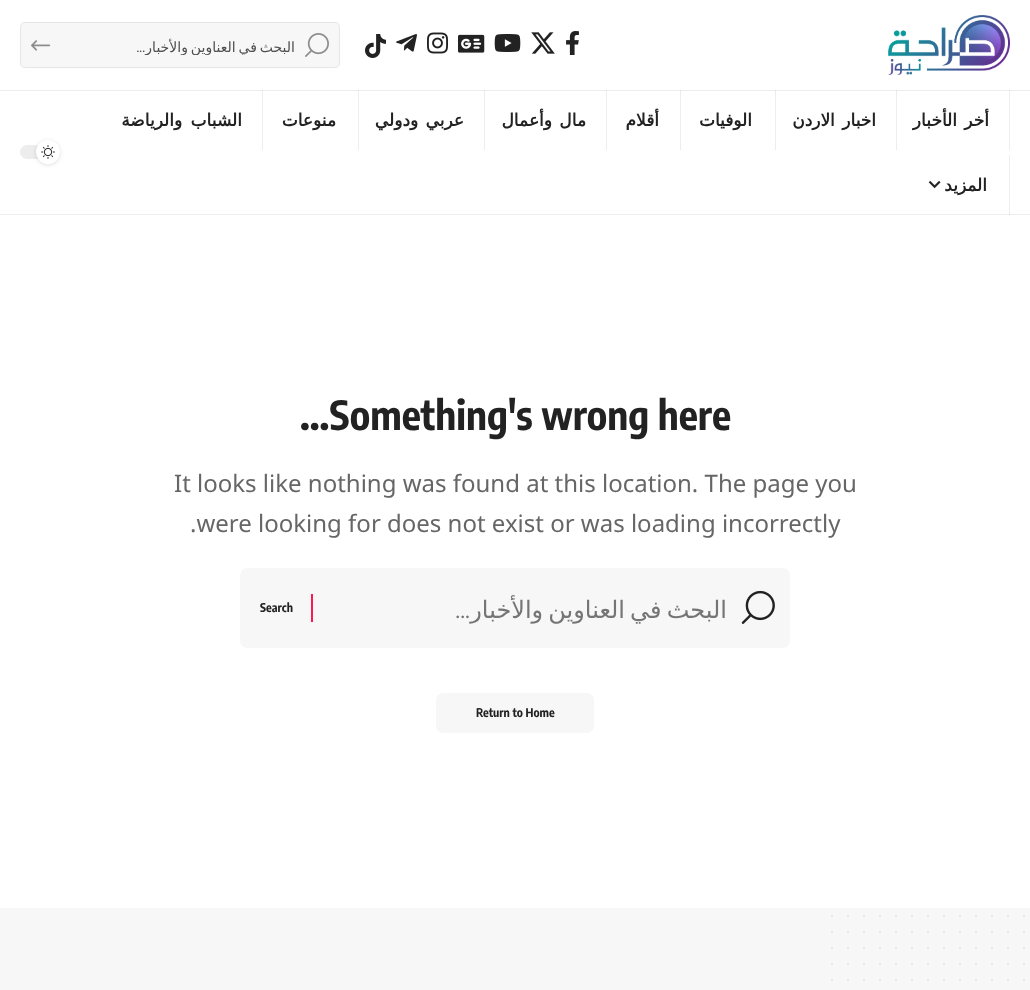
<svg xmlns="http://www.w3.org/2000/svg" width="1030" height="990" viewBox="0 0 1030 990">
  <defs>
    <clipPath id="clip1"><rect x="54" y="38" width="241" height="17"/></clipPath>
  </defs>
  <rect width="100%" height="100%" fill="rgb(255,255,255)"/>
  <rect x="0" y="214" width="1030" height="1" fill="rgb(237,237,237)"/>
  <rect x="262" y="90" width="1" height="60" fill="rgb(237,237,237)"/>
  <rect x="358" y="90" width="1" height="60" fill="rgb(237,237,237)"/>
  <rect x="484" y="90" width="1" height="60" fill="rgb(237,237,237)"/>
  <rect x="606" y="90" width="1" height="60" fill="rgb(237,237,237)"/>
  <rect x="680" y="90" width="1" height="60" fill="rgb(237,237,237)"/>
  <rect x="775" y="90" width="1" height="60" fill="rgb(237,237,237)"/>
  <rect x="896" y="90" width="1" height="60" fill="rgb(237,237,237)"/>
  <rect x="1009" y="90" width="1" height="60" fill="rgb(237,237,237)"/>
  <rect x="20" y="22" width="320" height="46" rx="5" fill="rgb(247,247,247)"/>
  <rect x="20.5" y="22.5" width="319" height="45" rx="4.5" fill="none" stroke="rgba(136,136,136,0.15)"/>
  <image x="31" y="40" width="20" height="11" href="pic1.png"/>
  <text x="145" y="52" font-family="Encode Sans Condensed" font-size="14" direction="rtl" fill="rgb(77,77,77)">...</text>
  <g clip-path="url(#clip1)">
    <text x="295" y="52" word-spacing="-1.5" font-family="DejaVu Sans" font-size="14" direction="rtl" fill="rgb(77,77,77)">البحث في العناوين والأخبار</text>
  </g>
  <image x="305" y="33" width="24" height="24" href="pic2.png"/>
  <image x="365" y="34" width="21" height="24" href="pic3.png"/>
  <image x="396" y="34" width="21" height="18" href="pic4.png"/>
  <image x="427" y="32" width="21" height="22" href="pic5.png"/>
  <image x="458" y="34" width="27" height="19" href="pic6.png"/>
  <image x="494" y="34" width="27" height="18" href="pic7.png"/>
  <image x="531" y="32" width="24" height="22" href="pic8.png"/>
  <image x="566" y="31" width="13" height="24" href="pic9.png"/>
  <image x="888" y="15" width="122" height="60" href="pic10.png"/>
  <rect x="0" y="90" width="1030" height="1" fill="rgb(237,237,237)"/>
  <rect x="262" y="90" width="1" height="1" fill="rgb(222,222,222)"/>
  <rect x="358" y="90" width="1" height="1" fill="rgb(222,222,222)"/>
  <rect x="484" y="90" width="1" height="1" fill="rgb(222,222,222)"/>
  <rect x="606" y="90" width="1" height="1" fill="rgb(222,222,222)"/>
  <rect x="680" y="90" width="1" height="1" fill="rgb(222,222,222)"/>
  <rect x="775" y="90" width="1" height="1" fill="rgb(222,222,222)"/>
  <rect x="896" y="90" width="1" height="1" fill="rgb(222,222,222)"/>
  <rect x="1009" y="90" width="1" height="1" fill="rgb(222,222,222)"/>
  <rect x="20" y="145" width="40" height="14" rx="7" fill="rgb(237,237,237)"/>
  <rect x="36" y="141" width="24" height="24" rx="12" fill="rgba(0,0,0,0.12)" filter="blur(2px)"/>
  <circle cx="48" cy="152" r="12" fill="rgb(255,255,255)"/>
  <image x="41" y="145" width="14" height="14" href="pic11.png"/>
  <g font-family="DejaVu Sans" font-size="17" font-weight="bold" letter-spacing="-0.3" direction="rtl" fill="rgb(34,34,34)">
    <text x="242" y="126" word-spacing="3">الشباب والرياضة</text>
    <text x="336" y="126">منوعات</text>
    <text x="464" y="126" word-spacing="2">عربي ودولي</text>
    <text x="586" y="126" word-spacing="2">مال وأعمال</text>
    <text x="659" y="126">أقلام</text>
    <text x="752" y="126">الوفيات</text>
    <text x="876" y="126" word-spacing="2">اخبار الاردن</text>
    <text x="989" y="126" word-spacing="2">أخر الأخبار</text>
  </g>
  <rect x="1009" y="155" width="1" height="60" fill="rgb(237,237,237)"/>
  <rect x="1009" y="214" width="1" height="1" fill="rgb(222,222,222)"/>
  <image x="928" y="180" width="13" height="9" href="pic12.png"/>
  <text x="987" y="191" font-family="DejaVu Sans" font-size="17" font-weight="bold" letter-spacing="-0.3" direction="rtl" fill="rgb(34,34,34)">المزيد</text>
  <text x="300" y="430" font-family="Encode Sans Condensed" font-size="40" font-weight="bold" fill="rgb(34,34,34)">...Something's wrong here</text>
  <g font-family="Noto Sans" font-size="24" fill="rgb(102,102,102)">
    <text x="174" y="492">It looks like nothing was found at this location. The page you</text>
    <text x="190" y="532">.were looking for does not exist or was loading incorrectly</text>
  </g>
  <rect x="240" y="568" width="550" height="80" rx="7" fill="rgb(247,247,247)"/>
  <text x="260" y="612" font-family="Encode Sans Condensed" font-size="12" font-weight="bold" fill="rgb(34,34,34)">Search</text>
  <rect x="311" y="594" width="2" height="28" fill="rgb(255,24,78)"/>
  <text x="470" y="618" font-family="Encode Sans Condensed" font-size="24" direction="rtl" fill="rgb(117,117,117)">...</text>
  <text x="727" y="618" word-spacing="-2.5" font-family="DejaVu Sans" font-size="24" direction="rtl" fill="rgb(117,117,117)">البحث في العناوين والأخبار</text>
  <image x="741" y="590" width="34" height="34" href="pic13.png"/>
  <rect x="436" y="693" width="158" height="40" rx="7" fill="rgb(247,247,247)"/>
  <text x="476" y="717" font-family="Encode Sans Condensed" font-size="12" font-weight="bold" fill="rgb(34,34,34)">Return to Home</text>
  <rect x="0" y="908" width="1030" height="82" fill="rgb(247,247,247)"/>
  <path d="M832 916H1024.2" fill="none" stroke="rgb(204,204,204)" stroke-width="1.5" stroke-linecap="round" stroke-dasharray="0 16"/>
  <path d="M832 932H1024.2" fill="none" stroke="rgb(204,204,204)" stroke-width="1.5" stroke-linecap="round" stroke-dasharray="0 16"/>
  <path d="M832 948H1024.2" fill="none" stroke="rgb(204,204,204)" stroke-width="1.5" stroke-linecap="round" stroke-dasharray="0 16"/>
  <path d="M832 964H1024.2" fill="none" stroke="rgb(204,204,204)" stroke-width="1.5" stroke-linecap="round" stroke-dasharray="0 16"/>
  <path d="M832 980H1024.2" fill="none" stroke="rgb(204,204,204)" stroke-width="1.5" stroke-linecap="round" stroke-dasharray="0 16"/>
</svg>
